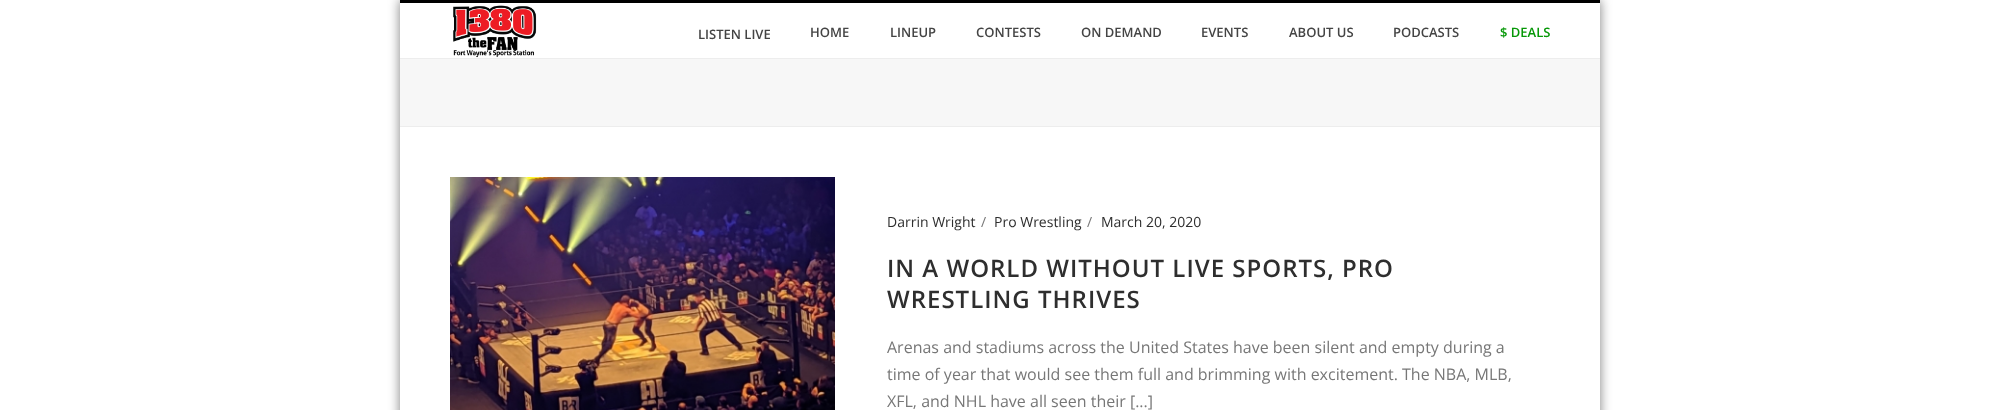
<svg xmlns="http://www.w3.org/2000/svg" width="2000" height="410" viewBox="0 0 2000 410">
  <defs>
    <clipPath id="clip1"><path d="M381 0H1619V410H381ZM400 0H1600V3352H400Z" clip-rule="evenodd"/></clipPath>
  </defs>
  <rect width="100%" height="100%" fill="rgb(255,255,255)"/>
  <g clip-path="url(#clip1)">
    <rect x="400" y="0" width="1200" height="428" fill="rgba(0,0,0,0.5)" filter="blur(6px)"/>
  </g>
  <rect x="400" y="59" width="1200" height="67" fill="rgb(247,247,247)"/>
  <rect x="400" y="126" width="1200" height="1" fill="rgb(237,237,237)"/>
  <rect x="400" y="0" width="1200" height="3" fill="rgb(0,0,0)"/>
  <rect x="400" y="58" width="1200" height="1" fill="rgb(237,237,237)"/>
  <image x="453" y="5" width="84" height="53" href="pic1.png"/>
  <g font-family="Open Sans" font-size="13" font-weight="600" fill="rgb(68,68,68)">
    <text x="698" y="39">LISTEN LIVE</text>
    <text x="810" y="37">HOME</text>
    <text x="890" y="37">LINEUP</text>
    <text x="976" y="37">CONTESTS</text>
    <text x="1081" y="37">ON DEMAND</text>
    <text x="1201" y="37">EVENTS</text>
    <text x="1289" y="37">ABOUT US</text>
    <text x="1393" y="37">PODCASTS</text>
  </g>
  <text x="1500" y="37" font-family="Open Sans" font-size="13" font-weight="600" fill="rgb(6,152,7)">$ DEALS</text>
  <image x="450" y="177" width="385" height="233" href="pic2.png"/>
  <text x="887" y="227" font-family="Open Sans" font-size="14" fill="rgb(46,46,46)">Darrin Wright</text>
  <text x="981" y="227" font-family="Open Sans" font-size="14" fill="rgb(119,119,119)">/</text>
  <text x="994" y="227" font-family="Open Sans" font-size="14" fill="rgb(46,46,46)">Pro Wrestling</text>
  <text x="1087" y="227" font-family="Open Sans" font-size="14" fill="rgb(119,119,119)">/</text>
  <text x="1101" y="227" font-family="Open Sans" font-size="14" fill="rgb(46,46,46)">March 20, 2020</text>
  <g font-family="Open Sans" font-size="24" font-weight="600" letter-spacing="1" fill="rgb(46,46,46)">
    <text>
      <tspan x="887" y="277">IN A WORLD WITHOUT LIVE SPORTS, PRO</tspan>
      <tspan x="887" y="308">WRESTLING THRIVES</tspan>
    </text>
  </g>
  <g font-family="Open Sans" font-size="16" fill="rgb(119,119,119)">
    <text>
      <tspan x="887" y="353">Arenas and stadiums across the United States have been silent and empty during a</tspan>
      <tspan x="887" y="380">time of year that would see them full and brimming with excitement. The NBA, MLB,</tspan>
      <tspan x="887" y="407">XFL, and NHL have all seen their [...]</tspan>
    </text>
  </g>
</svg>
